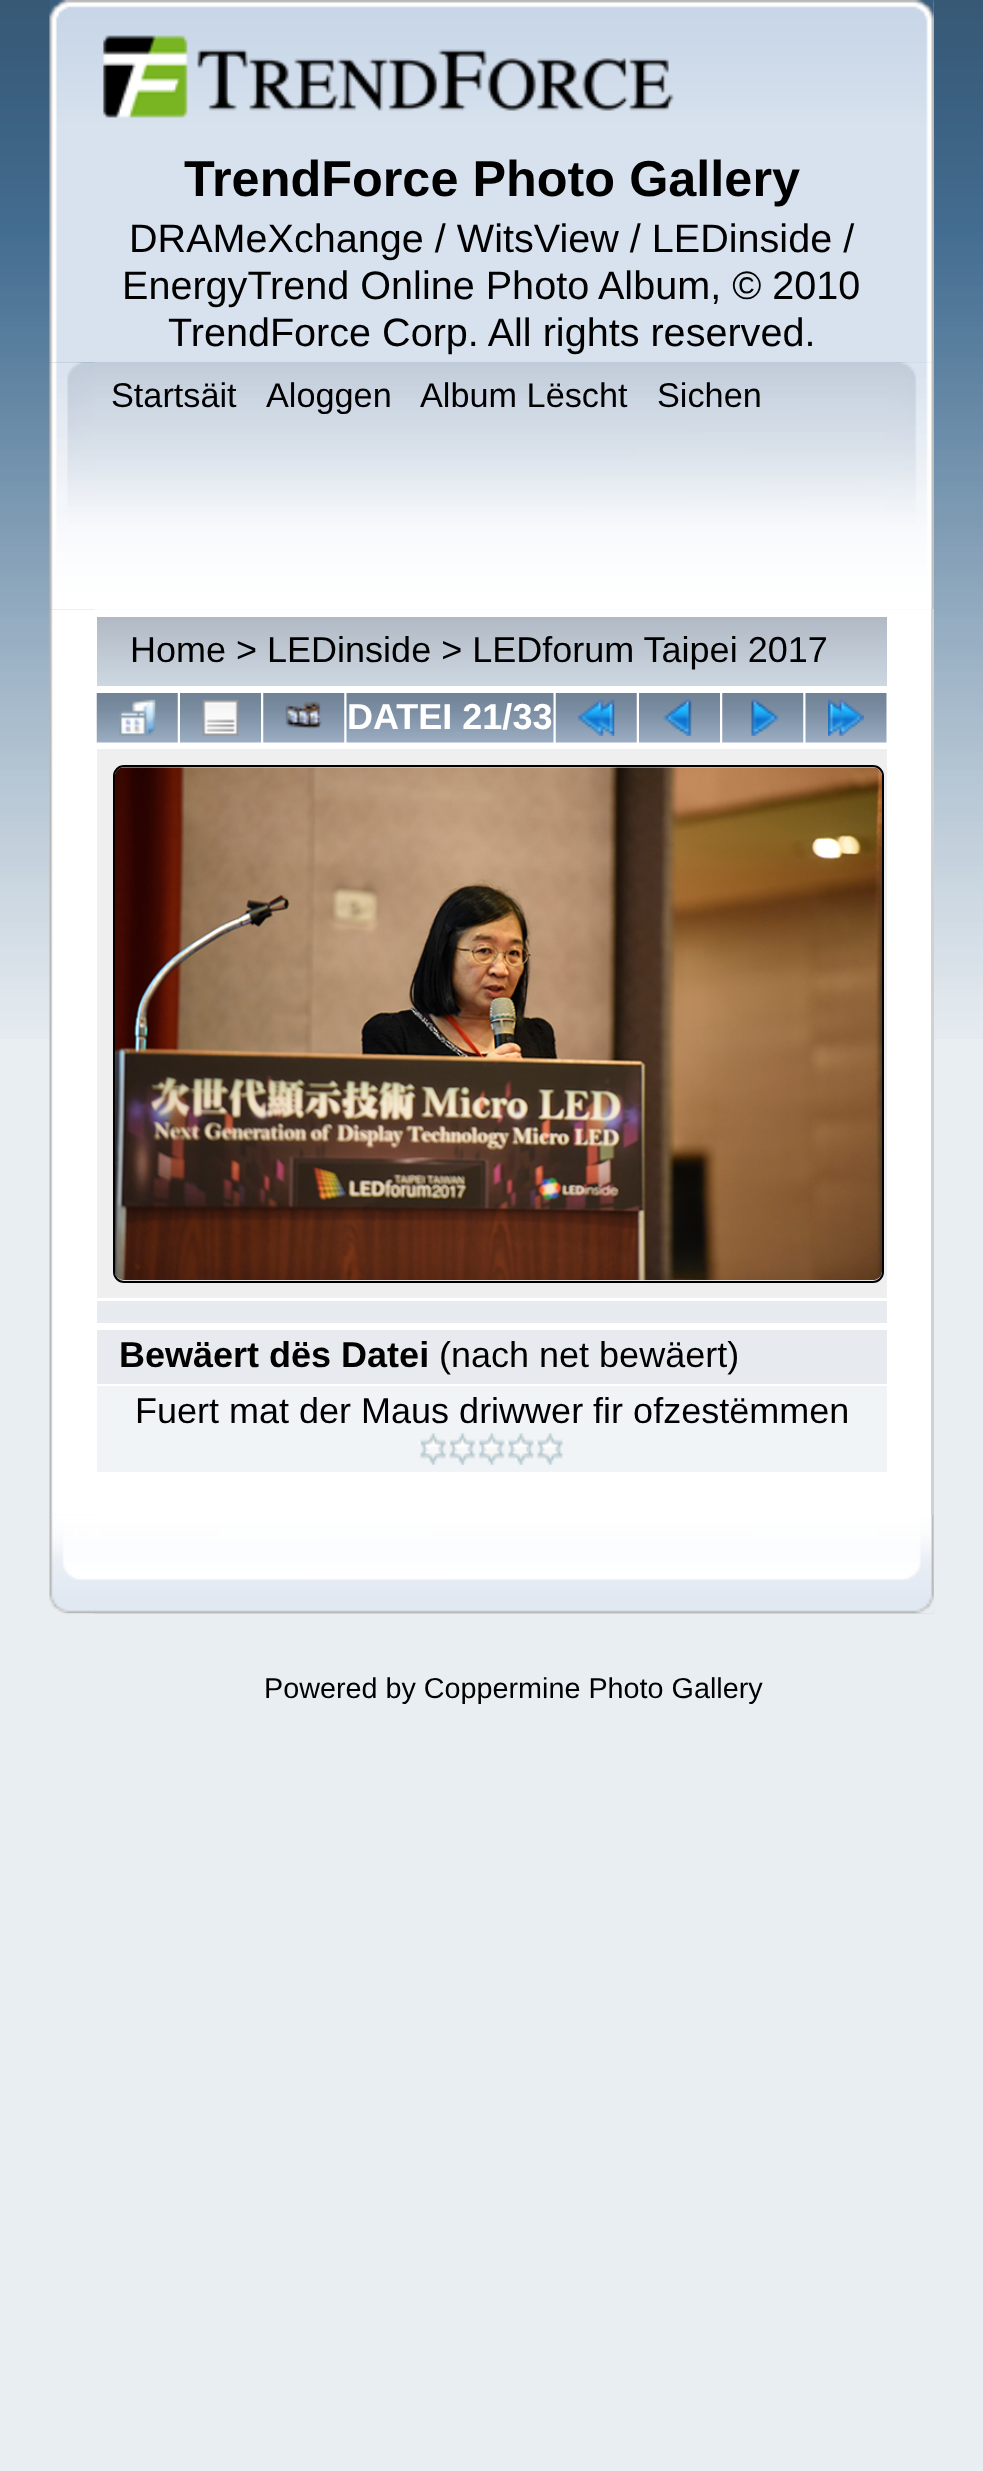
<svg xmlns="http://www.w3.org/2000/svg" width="983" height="2471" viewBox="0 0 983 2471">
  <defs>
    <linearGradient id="g1" gradientUnits="userSpaceOnUse" x1="492" y1="617" x2="492" y2="686"><stop offset="0" stop-color="rgb(177,186,196)"/><stop offset="1" stop-color="rgb(205,215,225)"/></linearGradient>
  </defs>
  <rect width="100%" height="100%" fill="rgb(233,238,242)"/>
  <image x="0" y="0" width="983" height="1039" href="pic1.png"/>
  <image x="49" y="0" width="885" height="363" href="pic2.png"/>
  <image x="94" y="0" width="840" height="363" href="pic3.png"/>
  <image x="103" y="35" width="571" height="83" href="pic4.png"/>
  <text x="184" y="196" font-family="Liberation Sans" font-size="50.4" font-weight="bold" fill="rgb(0,0,0)">TrendForce Photo Gallery</text>
  <g font-family="Liberation Sans" font-size="39.6" fill="rgb(0,0,0)">
    <text x="129" y="252">DRAMeXchange / WitsView / LEDinside /</text>
    <text x="122" y="299">EnergyTrend Online Photo Album, © 2010</text>
    <text x="168" y="346">TrendForce Corp. All rights reserved.</text>
  </g>
  <image x="49" y="362" width="885" height="248" href="pic5.png"/>
  <image x="94" y="362" width="840" height="248" href="pic6.png"/>
  <g font-family="Liberation Sans" font-size="34.25" fill="rgb(0,0,0)">
    <text x="111" y="407">Startsäit</text>
    <text x="266" y="407">Aloggen</text>
    <text x="420" y="407">Album Lëscht</text>
    <text x="657" y="407">Sichen</text>
  </g>
  <image x="49" y="609" width="882" height="906" href="pic7.png"/>
  <image x="49" y="1514" width="885" height="100" href="pic26.png"/>
  <image x="94" y="1514" width="840" height="100" href="pic27.png"/>
  <rect x="931" y="609" width="3" height="906" fill="rgb(209,209,209)"/>
  <rect x="97" y="617" width="790" height="69" fill="url(#g1)"/>
  <text x="130" y="662" font-family="Liberation Sans" font-size="36" fill="rgb(0,0,0)">Home &gt; LEDinside &gt; LEDforum Taipei 2017</text>
  <image x="96" y="693" width="82" height="50" href="pic8.png"/>
  <image x="119" y="699" width="37" height="37" href="pic9.png"/>
  <image x="180" y="693" width="81" height="50" href="pic10.png"/>
  <image x="202" y="699" width="37" height="37" href="pic11.png"/>
  <image x="263" y="693" width="82" height="50" href="pic12.png"/>
  <image x="285" y="701" width="37" height="28" href="pic13.png"/>
  <image x="346" y="693" width="208" height="50" href="pic14.png"/>
  <text x="347" y="729" font-family="Liberation Sans" font-size="36" font-weight="bold" fill="rgb(255,255,255)">DATEI 21/33</text>
  <image x="555" y="693" width="82" height="50" href="pic8.png"/>
  <image x="578" y="699" width="37" height="37" href="pic15.png"/>
  <image x="639" y="693" width="81" height="50" href="pic10.png"/>
  <image x="663" y="699" width="29" height="37" href="pic16.png"/>
  <image x="722" y="693" width="82" height="50" href="pic12.png"/>
  <image x="751" y="699" width="28" height="37" href="pic17.png"/>
  <image x="805" y="693" width="82" height="50" href="pic18.png"/>
  <image x="828" y="699" width="36" height="37" href="pic19.png"/>
  <rect x="97" y="749" width="790" height="549" fill="rgb(239,239,239)"/>
  <rect x="114" y="766" width="769" height="516" rx="10" fill="none" stroke="rgb(0,0,0)" stroke-width="2"/>
  <image x="114" y="767" width="768" height="514" href="pic20.png"/>
  <rect x="97" y="1301" width="790" height="22" fill="rgb(231,234,239)"/>
  <rect x="97" y="1330" width="790" height="54" fill="rgb(231,234,239)"/>
  <text x="119" y="1367" font-family="Liberation Sans" font-size="36" font-weight="bold" fill="rgb(0,0,0)">Bewäert dës Datei</text>
  <text x="439" y="1367" font-family="Liberation Sans" font-size="36" fill="rgb(0,0,0)">(nach net bewäert)</text>
  <rect x="97" y="1386" width="790" height="86" fill="rgb(240,244,247)"/>
  <text x="135" y="1423" font-family="Liberation Sans" font-size="36" fill="rgb(0,0,0)">Fuert mat der Maus driwwer fir ofzestëmmen</text>
  <image x="418" y="1433" width="30" height="32" href="pic21.png"/>
  <image x="448" y="1433" width="29" height="32" href="pic22.png"/>
  <image x="477" y="1433" width="29" height="32" href="pic23.png"/>
  <image x="506" y="1433" width="29" height="32" href="pic24.png"/>
  <image x="535" y="1433" width="30" height="32" href="pic25.png"/>
  <text x="264" y="1698" font-family="Liberation Sans" font-size="28.75" fill="rgb(0,0,0)">Powered by Coppermine Photo Gallery</text>
</svg>
